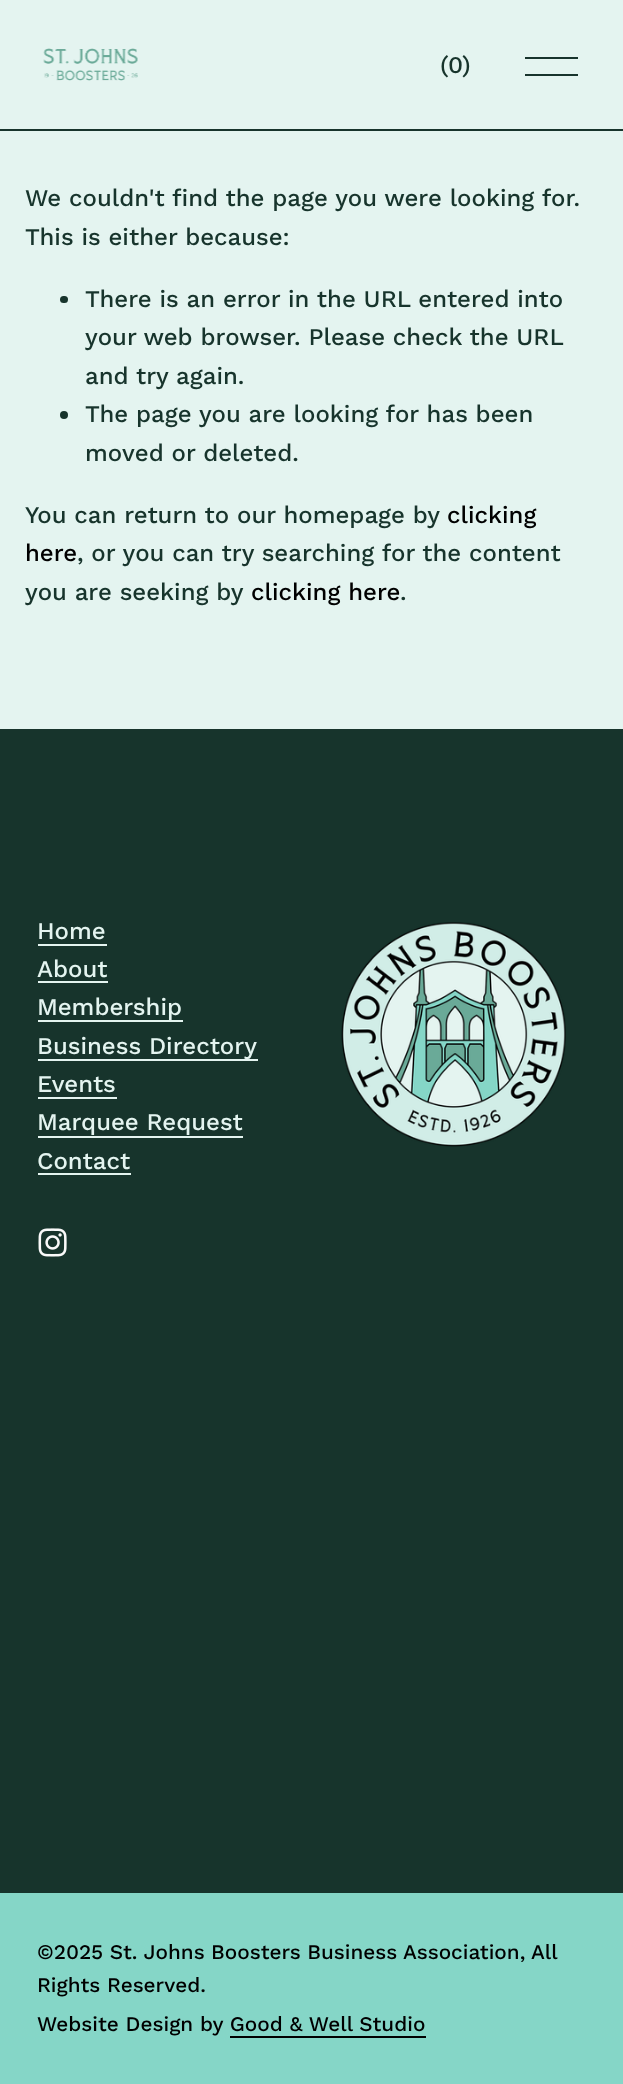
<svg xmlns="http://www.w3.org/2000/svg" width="623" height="2084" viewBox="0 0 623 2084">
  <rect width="100%" height="100%" fill="rgb(228,244,240)"/>
  <image x="43" y="48" width="95" height="33" href="pic1.png"/>
  <g font-family="Work Sans" font-size="24" font-weight="500" fill="rgb(23,52,44)">
    <text x="440" y="73">(</text>
    <text x="448" y="73">0</text>
    <text x="462" y="73">)</text>
  </g>
  <rect x="525" y="57" width="53" height="2" fill="rgb(23,52,44)"/>
  <rect x="525" y="74" width="53" height="2" fill="rgb(23,52,44)"/>
  <rect x="0" y="129" width="623" height="2" fill="rgb(23,52,44)"/>
  <g font-family="Work Sans" font-size="24" font-weight="500" fill="rgb(23,52,44)">
    <text>
      <tspan x="25" y="206">We couldn't find the page you were looking for.</tspan>
      <tspan x="25" y="245">This is either because:</tspan>
    </text>
  </g>
  <rect x="60" y="296" width="8" height="7" rx="3.5" fill="rgb(23,52,44)"/>
  <g font-family="Work Sans" font-size="24" font-weight="500" fill="rgb(23,52,44)">
    <text>
      <tspan x="85" y="307">There is an error in the URL entered into</tspan>
      <tspan x="85" y="345">your web browser. Please check the URL</tspan>
      <tspan x="85" y="384">and try again.</tspan>
    </text>
  </g>
  <circle cx="64" cy="415" r="4" fill="rgb(23,52,44)"/>
  <g font-family="Work Sans" font-size="24" font-weight="500" fill="rgb(23,52,44)">
    <text>
      <tspan x="85" y="422">The page you are looking for has been</tspan>
      <tspan x="85" y="461">moved or deleted.</tspan>
    </text>
    <text x="25" y="523">You can return to our homepage by</text>
  </g>
  <g font-family="Work Sans" font-size="24" font-weight="500" fill="rgb(0,0,0)">
    <text x="447" y="523">clicking</text>
    <text x="25" y="561">here</text>
  </g>
  <g font-family="Work Sans" font-size="24" font-weight="500" fill="rgb(23,52,44)">
    <text x="77" y="561">, or you can try searching for the content</text>
    <text x="25" y="600">you are seeking by</text>
  </g>
  <text x="251" y="600" font-family="Work Sans" font-size="24" font-weight="500" fill="rgb(0,0,0)">clicking here</text>
  <text x="400" y="600" font-family="Work Sans" font-size="24" font-weight="500" fill="rgb(23,52,44)">.</text>
  <rect x="0" y="729" width="623" height="1164" fill="rgb(23,52,44)"/>
  <text x="37" y="939" font-family="Work Sans" font-size="24" font-weight="500" fill="rgb(228,244,240)">Home</text>
  <rect x="38" y="944" width="69" height="2" fill="rgb(228,244,240)"/>
  <text x="37" y="977" font-family="Work Sans" font-size="24" font-weight="500" fill="rgb(228,244,240)">About</text>
  <rect x="38" y="981" width="70" height="2" fill="rgb(228,244,240)"/>
  <rect x="38" y="1020" width="145" height="2" fill="rgb(228,244,240)"/>
  <text x="37" y="1015" font-family="Work Sans" font-size="24" font-weight="500" fill="rgb(228,244,240)">Membership</text>
  <rect x="38" y="1059" width="220" height="2" fill="rgb(228,244,240)"/>
  <g font-family="Work Sans" font-size="24" font-weight="500" fill="rgb(228,244,240)">
    <text>
      <tspan x="37" y="1054">Business Directory</tspan>
      <tspan x="37" y="1092">Events</tspan>
    </text>
  </g>
  <rect x="38" y="1097" width="79" height="2" fill="rgb(228,244,240)"/>
  <text x="37" y="1130" font-family="Work Sans" font-size="24" font-weight="500" fill="rgb(228,244,240)">Marquee Request</text>
  <rect x="38" y="1136" width="205" height="2" fill="rgb(228,244,240)"/>
  <text x="37" y="1169" font-family="Work Sans" font-size="24" font-weight="500" fill="rgb(228,244,240)">Contact</text>
  <rect x="38" y="1173" width="93" height="2" fill="rgb(228,244,240)"/>
  <image x="341" y="922" width="225" height="225" href="pic2.png"/>
  <image x="38" y="1228" width="29" height="29" href="pic3.png"/>
  <rect x="0" y="1893" width="623" height="191" fill="rgb(133,214,199)"/>
  <g font-family="Work Sans" font-size="20.75" font-weight="500" fill="rgb(0,0,0)">
    <text>
      <tspan x="37" y="1959" word-spacing="-0.25">©2025 St. Johns Boosters Business Association, All</tspan>
      <tspan x="37" y="1992">Rights Reserved.</tspan>
      <tspan x="37" y="2031">Website Design by Good &amp; Well Studio</tspan>
    </text>
  </g>
  <rect x="230" y="2036" width="196" height="2" fill="rgb(0,0,0)"/>
</svg>
